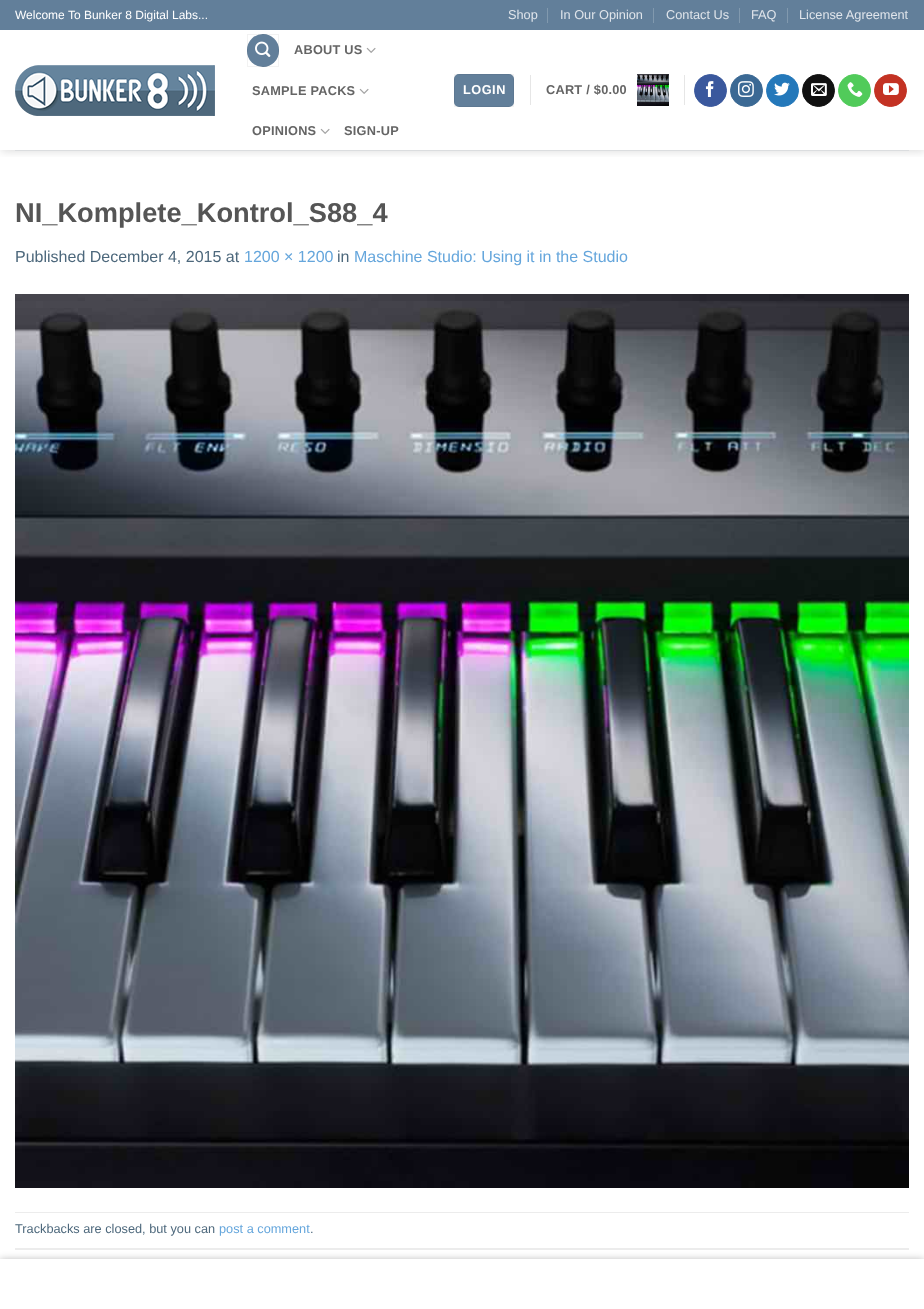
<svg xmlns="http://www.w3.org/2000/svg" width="924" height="1309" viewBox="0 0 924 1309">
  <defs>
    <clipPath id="clip1"><rect x="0" y="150" width="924" height="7"/></clipPath>
  </defs>
  <rect width="100%" height="100%" fill="rgb(255,255,255)"/>
  <g clip-path="url(#clip1)">
    <rect x="1" y="1" width="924" height="150" fill="rgba(0,0,0,0.15)" filter="blur(5px)"/>
  </g>
  <rect x="0" y="0" width="924" height="30" fill="rgb(98,127,154)"/>
  <text x="15" y="19" font-family="Liberation Sans" font-size="12" fill="rgb(255,255,255)">Welcome To Bunker 8 Digital Labs...</text>
  <text x="508" y="19" font-family="Liberation Sans" font-size="12.75" fill="rgb(224,229,235)">Shop</text>
  <rect x="547" y="8" width="1" height="15" fill="rgb(129,153,174)"/>
  <text x="560" y="19" font-family="Liberation Sans" font-size="12.75" fill="rgb(224,229,235)">In Our Opinion</text>
  <rect x="653" y="8" width="1" height="15" fill="rgb(129,153,174)"/>
  <text x="666" y="19" font-family="Liberation Sans" font-size="12.75" fill="rgb(224,229,235)">Contact Us</text>
  <rect x="739" y="8" width="1" height="15" fill="rgb(129,153,174)"/>
  <text x="751" y="19" font-family="Liberation Sans" font-size="12.75" fill="rgb(224,229,235)">FAQ</text>
  <rect x="787" y="8" width="1" height="15" fill="rgb(129,153,174)"/>
  <text x="799" y="19" font-family="Liberation Sans" font-size="12.75" fill="rgb(224,229,235)">License Agreement</text>
  <image x="15" y="65" width="200" height="51" href="pic1.png"/>
  <rect x="247" y="34" width="32" height="33" rx="16" fill="rgb(98,127,154)"/>
  <rect x="247.5" y="34.5" width="31" height="32" fill="none" stroke="rgba(0,0,0,0.05)"/>
  <image x="255" y="41" width="16" height="16" href="pic2.png"/>
  <text x="294" y="54" font-family="Liberation Sans" font-size="12.75" font-weight="bold" letter-spacing="0.25" fill="rgb(101,101,101)">ABOUT US</text>
  <image x="366" y="47" width="10" height="6" href="pic3.png"/>
  <text x="252" y="95" font-family="Liberation Sans" font-size="12.75" font-weight="bold" letter-spacing="0.25" fill="rgb(101,101,101)">SAMPLE PACKS</text>
  <image x="359" y="88" width="10" height="6" href="pic3.png"/>
  <text x="252" y="135" font-family="Liberation Sans" font-size="12.75" font-weight="bold" letter-spacing="0.25" fill="rgb(101,101,101)">OPINIONS</text>
  <image x="320" y="128" width="10" height="6" href="pic3.png"/>
  <text x="344" y="135" font-family="Liberation Sans" font-size="12.75" font-weight="bold" letter-spacing="0.25" fill="rgb(101,101,101)">SIGN-UP</text>
  <rect x="454" y="74" width="60" height="33" rx="5" fill="rgb(98,127,154)"/>
  <rect x="454.5" y="74.5" width="59" height="32" fill="none" stroke="rgba(0,0,0,0.05)"/>
  <text x="463" y="94" font-family="Liberation Sans" font-size="12.75" font-weight="bold" letter-spacing="0.5" fill="rgb(255,255,255)">LOGIN</text>
  <rect x="530" y="75" width="1" height="30" fill="rgb(230,230,230)"/>
  <text x="546" y="94" font-family="Liberation Sans" font-size="12.75" font-weight="bold" letter-spacing="0.25" fill="rgb(101,101,101)">CART / $0.00</text>
  <image x="637" y="74" width="32" height="32" href="pic4.png"/>
  <rect x="684" y="75" width="1" height="30" fill="rgb(230,230,230)"/>
  <circle cx="710.5" cy="90.5" r="16" fill="rgb(58,88,157)" stroke="rgb(58,88,157)"/>
  <image x="705" y="81" width="9" height="16" href="pic5.png"/>
  <circle cx="746.5" cy="90.5" r="16" fill="rgb(59,105,148)" stroke="rgb(59,105,148)"/>
  <image x="738" y="81" width="16" height="16" href="pic6.png"/>
  <circle cx="782.5" cy="90.5" r="16" fill="rgb(36,120,186)" stroke="rgb(36,120,186)"/>
  <image x="774" y="82" width="16" height="14" href="pic7.png"/>
  <circle cx="818.5" cy="90.5" r="16" fill="rgb(17,17,17)" stroke="rgb(17,17,17)"/>
  <image x="811" y="83" width="16" height="13" href="pic8.png"/>
  <circle cx="854.5" cy="90.5" r="16" fill="rgb(81,203,90)" stroke="rgb(81,203,90)"/>
  <image x="847" y="82" width="16" height="15" href="pic9.png"/>
  <circle cx="890.5" cy="90.5" r="16" fill="rgb(195,50,35)" stroke="rgb(195,50,35)"/>
  <image x="883" y="83" width="16" height="12" href="pic10.png"/>
  <rect x="15" y="150" width="894" height="1" fill="rgb(219,221,223)"/>
  <text x="15" y="222" font-family="Liberation Sans" font-size="27.25" font-weight="bold" fill="rgb(85,85,85)">NI_Komplete_Kontrol_S88_4</text>
  <text x="15" y="262" font-family="Liberation Sans" font-size="16" fill="rgb(77,104,124)">Published December 4, 2015 at</text>
  <text x="244" y="262" font-family="Liberation Sans" font-size="16" fill="rgb(101,166,220)">1200 × 1200</text>
  <text x="337" y="262" font-family="Liberation Sans" font-size="16" fill="rgb(77,104,124)">in</text>
  <text x="354" y="262" font-family="Liberation Sans" font-size="16" fill="rgb(101,166,220)">Maschine Studio: Using it in the Studio</text>
  <image x="15" y="294" width="894" height="894" href="pic11.png"/>
  <rect x="15" y="1212" width="894" height="1" fill="rgb(236,236,236)"/>
  <rect x="15" y="1248" width="894" height="2" fill="rgb(236,236,236)"/>
  <text x="15" y="1233" font-family="Liberation Sans" font-size="12.75" fill="rgb(77,104,124)">Trackbacks are closed, but you can</text>
  <text x="219" y="1233" font-family="Liberation Sans" font-size="12.75" fill="rgb(101,166,220)">post a comment</text>
  <text x="310" y="1233" font-family="Liberation Sans" font-size="12.75" fill="rgb(77,104,124)">.</text>
  <rect x="0" y="1259" width="924" height="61" fill="rgba(0,0,0,0.25)" filter="blur(3.5px)"/>
  <rect x="0" y="1259" width="924" height="50" fill="rgb(255,255,255)"/>
</svg>
